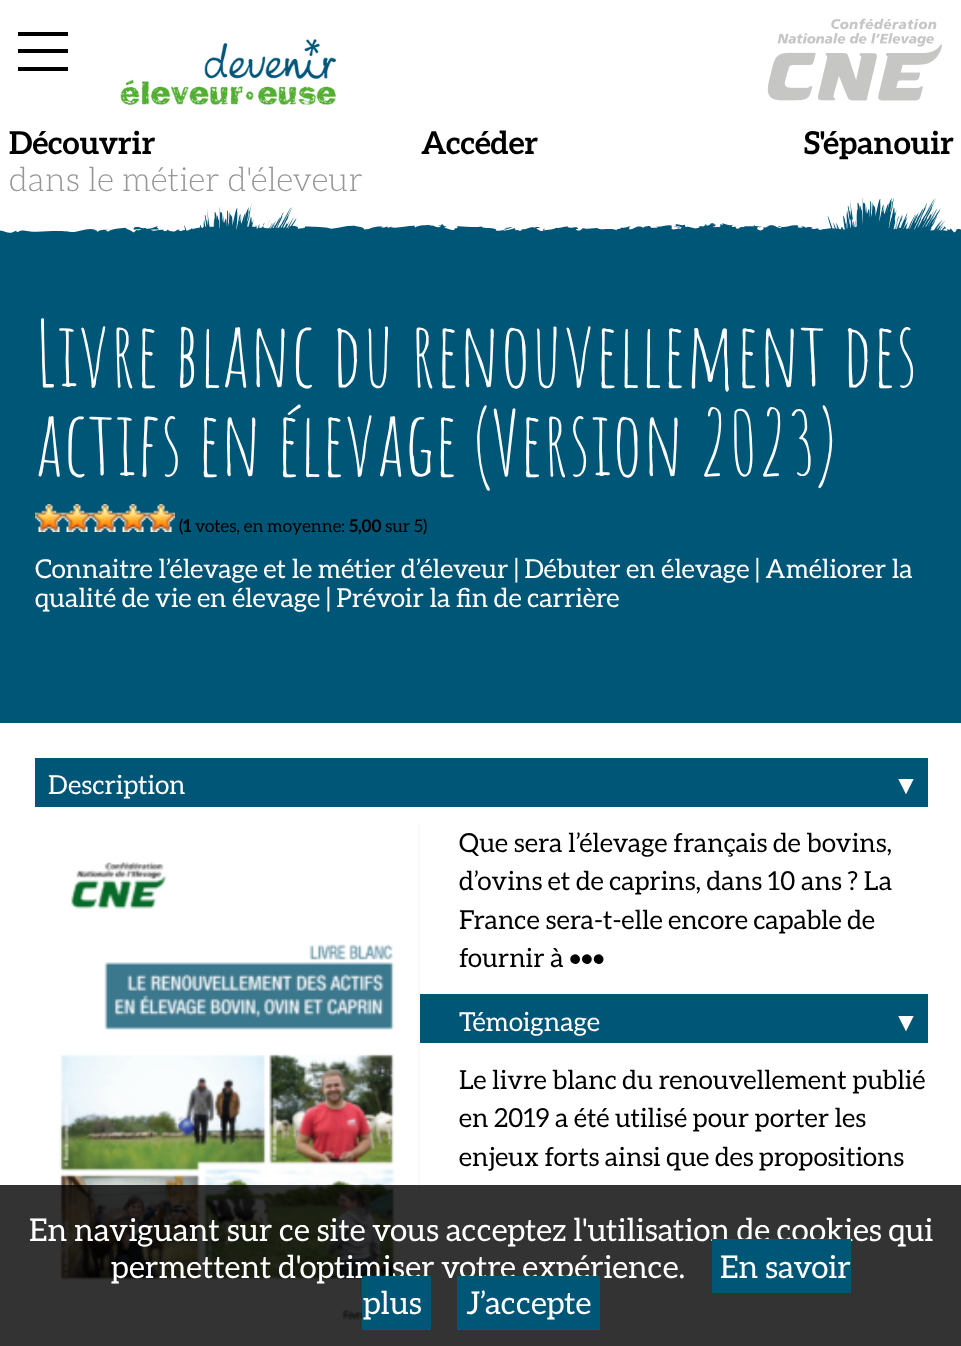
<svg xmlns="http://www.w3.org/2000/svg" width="961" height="1346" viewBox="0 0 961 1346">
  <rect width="100%" height="100%" fill="rgb(255,255,255)"/>
  <rect x="18" y="32" width="50" height="4" fill="rgb(0,0,0)"/>
  <rect x="18" y="49" width="50" height="4" fill="rgb(0,0,0)"/>
  <rect x="18" y="67" width="50" height="4" fill="rgb(0,0,0)"/>
  <image x="120" y="39" width="216" height="66" href="pic1.png"/>
  <image x="767" y="18" width="175" height="83" href="pic2.png"/>
  <g font-family="aleo" font-size="31.5" font-weight="bold" fill="rgb(0,0,0)">
    <text x="9" y="154">Découvrir</text>
    <text x="421" y="154">Accéder</text>
    <text x="804" y="154">S'épanouir</text>
  </g>
  <text x="9" y="191" font-family="aleo" font-size="33.25" font-weight="300" fill="rgb(150,150,150)">dans le métier d'éleveur</text>
  <rect x="0" y="198" width="961" height="525" fill="rgb(0,86,118)"/>
  <image x="0" y="198" width="961" height="35" href="pic3.png"/>
  <g font-family="Amatic SC" font-size="89.25" fill="rgb(255,255,255)">
    <text>
      <tspan x="35" y="387">Livre blanc du renouvellement des</tspan>
      <tspan x="35" y="476">actifs en élevage (Version 2023)</tspan>
    </text>
  </g>
  <image x="35" y="504" width="28" height="28" href="pic4.png"/>
  <image x="63" y="504" width="28" height="28" href="pic4.png"/>
  <image x="91" y="504" width="28" height="28" href="pic5.png"/>
  <image x="119" y="504" width="28" height="28" href="pic4.png"/>
  <image x="147" y="504" width="28" height="28" href="pic4.png"/>
  <text x="179" y="532" font-family="Aleo" font-size="17.5" fill="rgb(0,0,0)">(</text>
  <text x="183" y="532" font-family="aleo" font-size="17.5" font-weight="bold" fill="rgb(0,0,0)">1</text>
  <text x="195" y="532" font-family="Aleo" font-size="17.5" fill="rgb(0,0,0)">votes, en moyenne:</text>
  <text x="349" y="532" font-family="aleo" font-size="17.5" font-weight="bold" fill="rgb(0,0,0)">5,00</text>
  <text x="385" y="532" font-family="Aleo" font-size="17.5" fill="rgb(0,0,0)">sur 5)</text>
  <g font-family="Aleo" font-size="26.25" fill="rgb(255,255,255)">
    <text>
      <tspan x="35" y="578">Connaitre l’élevage et le métier d’éleveur | Débuter en élevage | Améliorer la</tspan>
      <tspan x="35" y="607">qualité de vie en élevage | Prévoir la fin de carrière</tspan>
    </text>
  </g>
  <rect x="35" y="758" width="893" height="49" fill="rgb(0,86,118)"/>
  <text x="48" y="794" font-family="Aleo" font-size="26.25" fill="rgb(255,255,255)">Description</text>
  <text x="893" y="794" font-family="Liberation Sans" font-size="26.25" fill="rgb(255,255,255)">▼</text>
  <image x="35" y="824" width="385" height="522" href="pic6.png"/>
  <g font-family="Aleo" font-size="26.25" fill="rgb(0,0,0)">
    <text>
      <tspan x="459" y="852">Que sera l’élevage français de bovins,</tspan>
      <tspan x="459" y="890">d’ovins et de caprins, dans 10 ans ? La</tspan>
      <tspan x="459" y="929">France sera-t-elle encore capable de</tspan>
      <tspan x="459" y="967">fournir à •••</tspan>
    </text>
  </g>
  <rect x="420" y="994" width="508" height="49" fill="rgb(0,86,118)"/>
  <text x="459" y="1031" font-family="Aleo" font-size="26.25" fill="rgb(255,255,255)">Témoignage</text>
  <text x="893" y="1031" font-family="Liberation Sans" font-size="26.25" fill="rgb(255,255,255)">▼</text>
  <g font-family="Aleo" font-size="26.25" fill="rgb(0,0,0)">
    <text>
      <tspan x="459" y="1089">Le livre blanc du renouvellement publié</tspan>
      <tspan x="459" y="1127">en 2019 a été utilisé pour porter les</tspan>
      <tspan x="459" y="1166">enjeux forts ainsi que des propositions</tspan>
    </text>
  </g>
  <rect x="0" y="1185" width="961" height="161" fill="rgba(0,0,0,0.8)"/>
  <g font-family="Aleo" font-size="31.5" fill="rgb(255,255,255)">
    <text x="29" y="1241">En naviguant sur ce site vous acceptez l'utilisation de cookies qui</text>
    <text x="111" y="1278">permettent d'optimiser votre expérience.</text>
  </g>
  <rect x="712" y="1239" width="139" height="54" fill="rgb(0,86,118)"/>
  <text x="720" y="1278" font-family="Aleo" font-size="31.5" fill="rgb(255,255,255)">En savoir</text>
  <rect x="362" y="1276" width="69" height="54" fill="rgb(0,86,118)"/>
  <text x="363" y="1314" font-family="Aleo" font-size="31.5" fill="rgb(255,255,255)">plus</text>
  <rect x="457" y="1276" width="143" height="54" fill="rgb(0,86,118)"/>
  <text x="466" y="1314" font-family="Aleo" font-size="31.5" fill="rgb(255,255,255)">J’accepte</text>
</svg>
